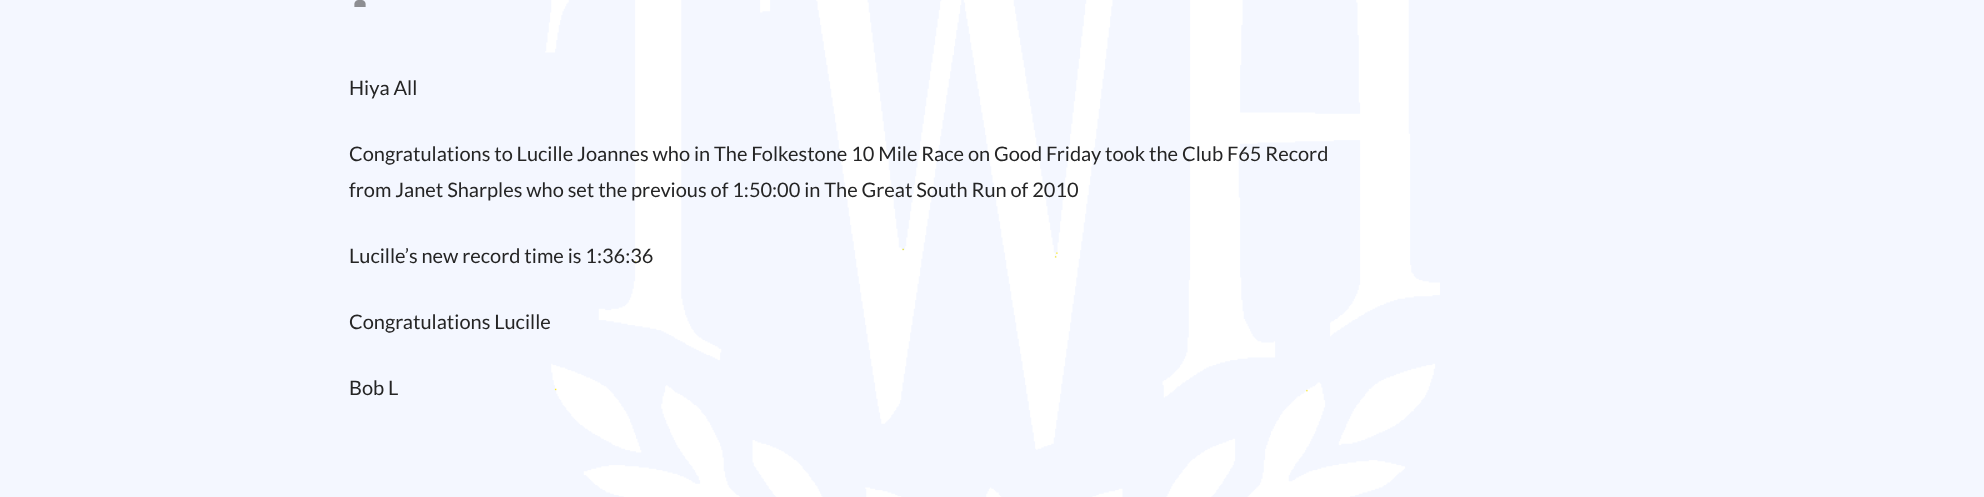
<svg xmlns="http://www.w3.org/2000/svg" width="1984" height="497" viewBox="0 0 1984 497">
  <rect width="100%" height="100%" fill="rgb(244,247,255)"/>
  <image x="545" y="0" width="895" height="497" href="pic1.png"/>
  <image x="354" y="0" width="12" height="7" href="pic2.png"/>
  <g font-family="Lato" font-size="20" fill="rgb(37,37,37)">
    <text x="349" y="95">Hiya All</text>
    <text>
      <tspan x="349" y="161">Congratulations to Lucille Joannes who in The Folkestone 10 Mile Race on Good Friday took the Club F65 Record</tspan>
      <tspan x="349" y="197">from Janet Sharples who set the previous of 1:50:00 in The Great South Run of 2010</tspan>
    </text>
    <text x="349" y="263">Lucille’s new record time is 1:36:36</text>
    <text x="349" y="329">Congratulations Lucille</text>
    <text x="349" y="395">Bob L</text>
  </g>
</svg>
